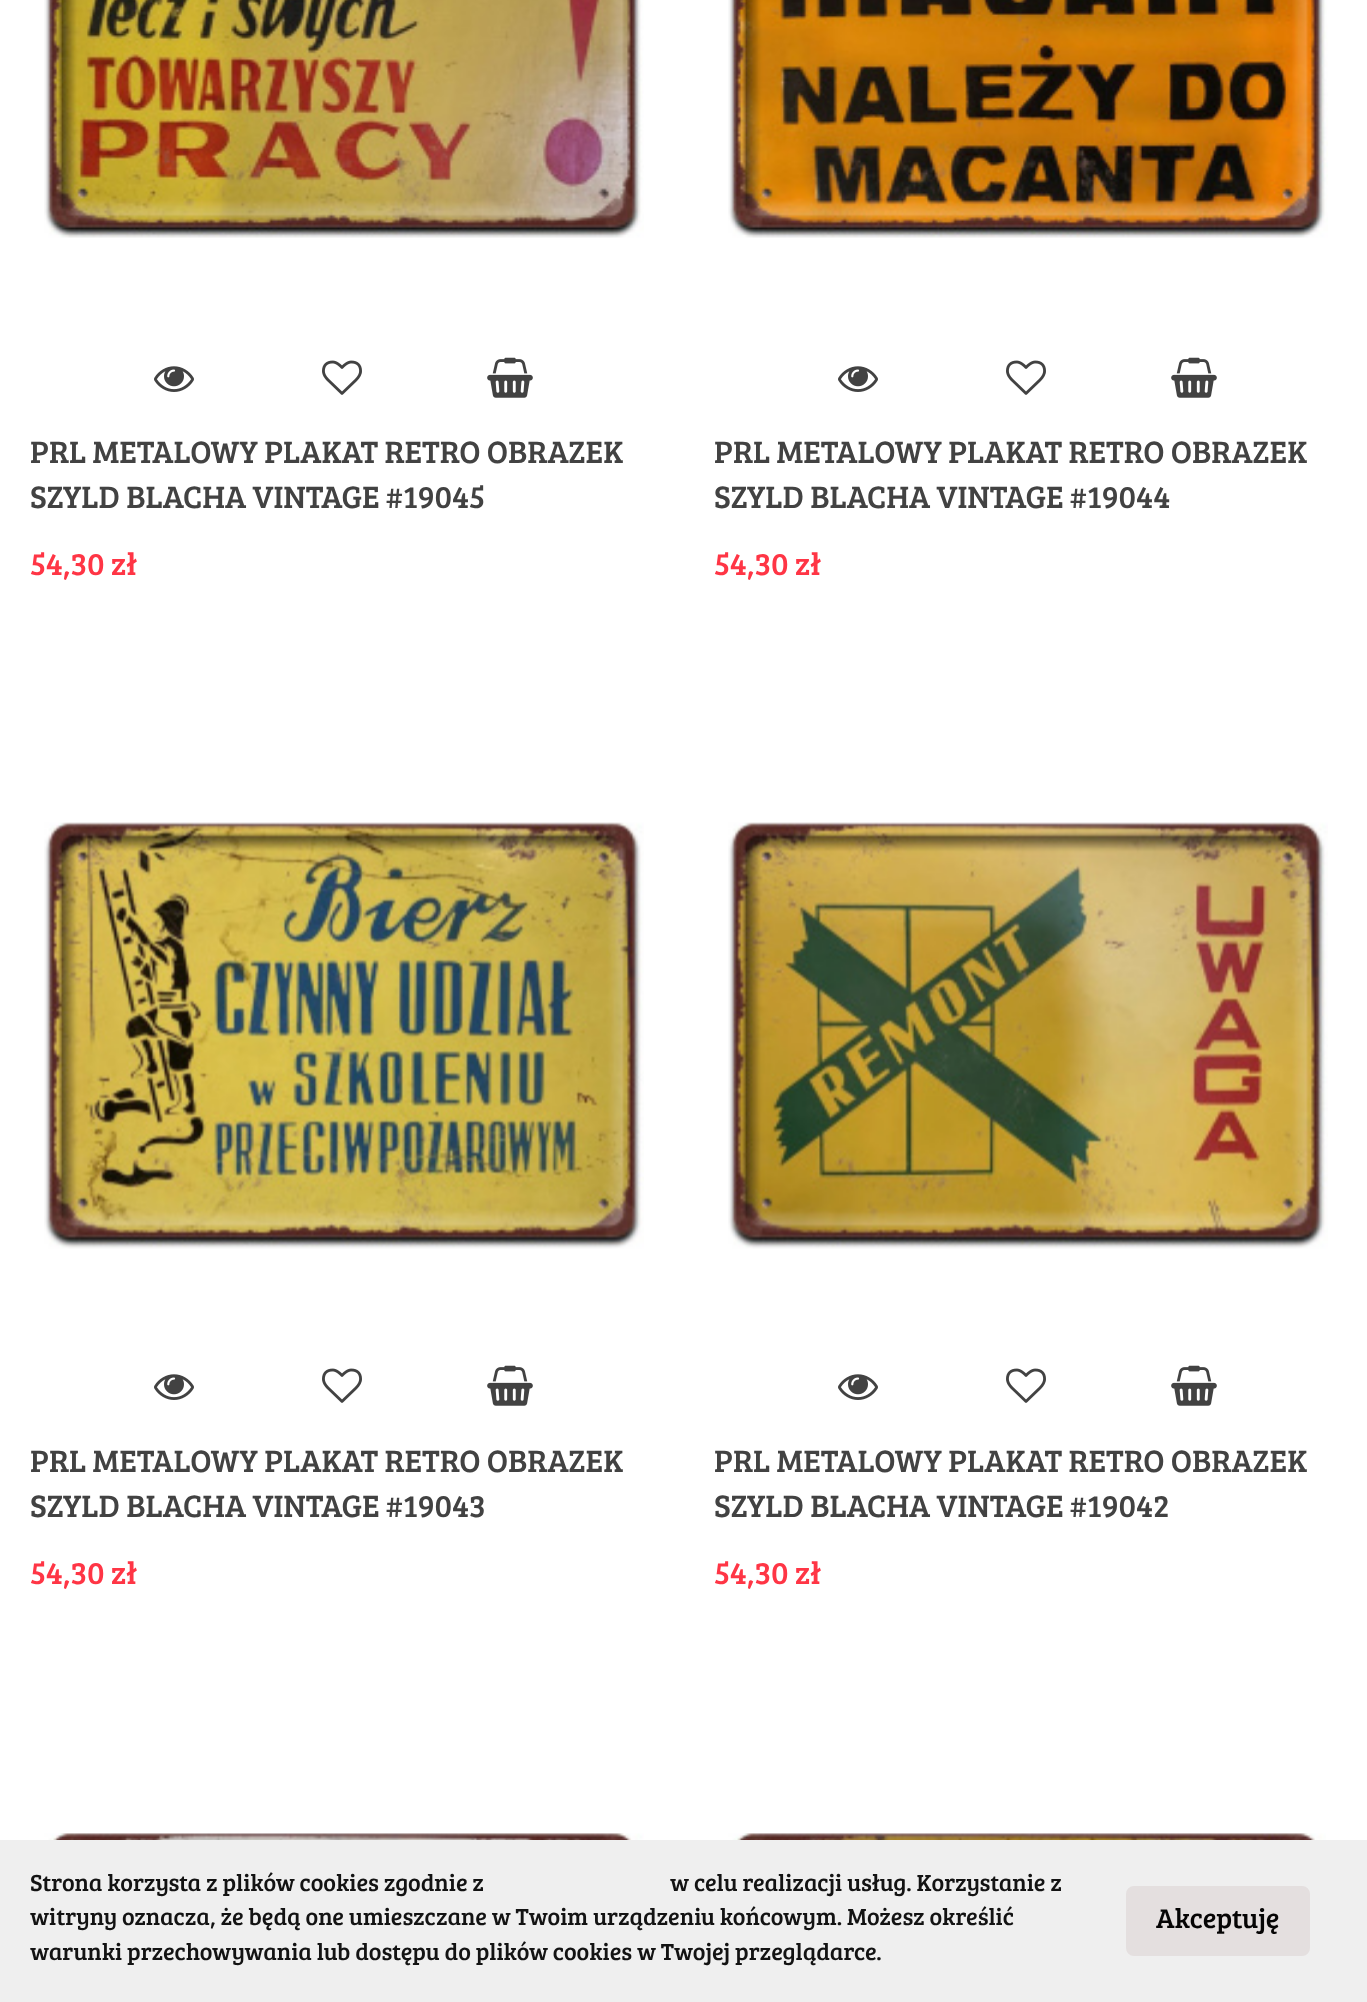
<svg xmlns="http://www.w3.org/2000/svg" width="1367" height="2002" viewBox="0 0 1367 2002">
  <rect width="100%" height="100%" fill="rgb(255,255,255)"/>
  <image x="44" y="0" width="600" height="238" href="pic1.png"/>
  <image x="154" y="366" width="40" height="26" href="pic2.png"/>
  <image x="322" y="360" width="40" height="35" href="pic3.png"/>
  <image x="487" y="357" width="46" height="41" href="pic4.png"/>
  <g font-family="Bree Serif" font-size="32" fill="rgb(66,66,66)">
    <text>
      <tspan x="30" y="463">PRL METALOWY PLAKAT RETRO OBRAZEK</tspan>
      <tspan x="30" y="508">SZYLD BLACHA VINTAGE #19045</tspan>
    </text>
  </g>
  <text x="30" y="575" font-family="Bree Serif" font-size="32" fill="rgb(255,53,69)">54,30 zł</text>
  <image x="728" y="0" width="600" height="238" href="pic5.png"/>
  <image x="838" y="366" width="40" height="26" href="pic2.png"/>
  <image x="1006" y="360" width="40" height="35" href="pic3.png"/>
  <image x="1171" y="357" width="46" height="41" href="pic4.png"/>
  <g font-family="Bree Serif" font-size="32" fill="rgb(66,66,66)">
    <text>
      <tspan x="714" y="463">PRL METALOWY PLAKAT RETRO OBRAZEK</tspan>
      <tspan x="714" y="508">SZYLD BLACHA VINTAGE #19044</tspan>
    </text>
  </g>
  <text x="714" y="575" font-family="Bree Serif" font-size="32" fill="rgb(255,53,69)">54,30 zł</text>
  <image x="44" y="822" width="600" height="427" href="pic6.png"/>
  <image x="154" y="1374" width="40" height="26" href="pic2.png"/>
  <image x="322" y="1368" width="40" height="35" href="pic3.png"/>
  <image x="487" y="1365" width="46" height="41" href="pic4.png"/>
  <g font-family="Bree Serif" font-size="32" fill="rgb(66,66,66)">
    <text>
      <tspan x="30" y="1472">PRL METALOWY PLAKAT RETRO OBRAZEK</tspan>
      <tspan x="30" y="1517">SZYLD BLACHA VINTAGE #19043</tspan>
    </text>
  </g>
  <text x="30" y="1584" font-family="Bree Serif" font-size="32" fill="rgb(255,53,69)">54,30 zł</text>
  <image x="728" y="822" width="600" height="427" href="pic7.png"/>
  <image x="838" y="1374" width="40" height="26" href="pic2.png"/>
  <image x="1006" y="1368" width="40" height="35" href="pic3.png"/>
  <image x="1171" y="1365" width="46" height="41" href="pic4.png"/>
  <g font-family="Bree Serif" font-size="32" fill="rgb(66,66,66)">
    <text>
      <tspan x="714" y="1472">PRL METALOWY PLAKAT RETRO OBRAZEK</tspan>
      <tspan x="714" y="1517">SZYLD BLACHA VINTAGE #19042</tspan>
    </text>
  </g>
  <text x="714" y="1584" font-family="Bree Serif" font-size="32" fill="rgb(255,53,69)">54,30 zł</text>
  <image x="44" y="1833" width="600" height="7" href="pic8.png"/>
  <image x="728" y="1833" width="598" height="7" href="pic9.png"/>
  <rect x="0" y="1840" width="1367" height="162" fill="rgb(239,239,239)"/>
  <g font-family="Bree Serif" font-size="24" fill="rgb(19,19,19)">
    <text x="30" y="1891">Strona korzysta z plików cookies zgodnie z</text>
    <text x="670" y="1891">w celu realizacji usług. Korzystanie z</text>
    <text>
      <tspan x="30" y="1925">witryny oznacza, że będą one umieszczane w Twoim urządzeniu końcowym. Możesz określić</tspan>
      <tspan x="30" y="1960">warunki przechowywania lub dostępu do plików cookies w Twojej przeglądarce.</tspan>
    </text>
  </g>
  <rect x="1129" y="1889" width="178" height="64" rx="5" fill="rgb(228,223,223)" stroke="rgb(228,223,223)" stroke-width="6"/>
  <text x="1156" y="1928" font-family="Bree Serif" font-size="28" fill="rgb(6,5,5)">Akceptuję</text>
</svg>
